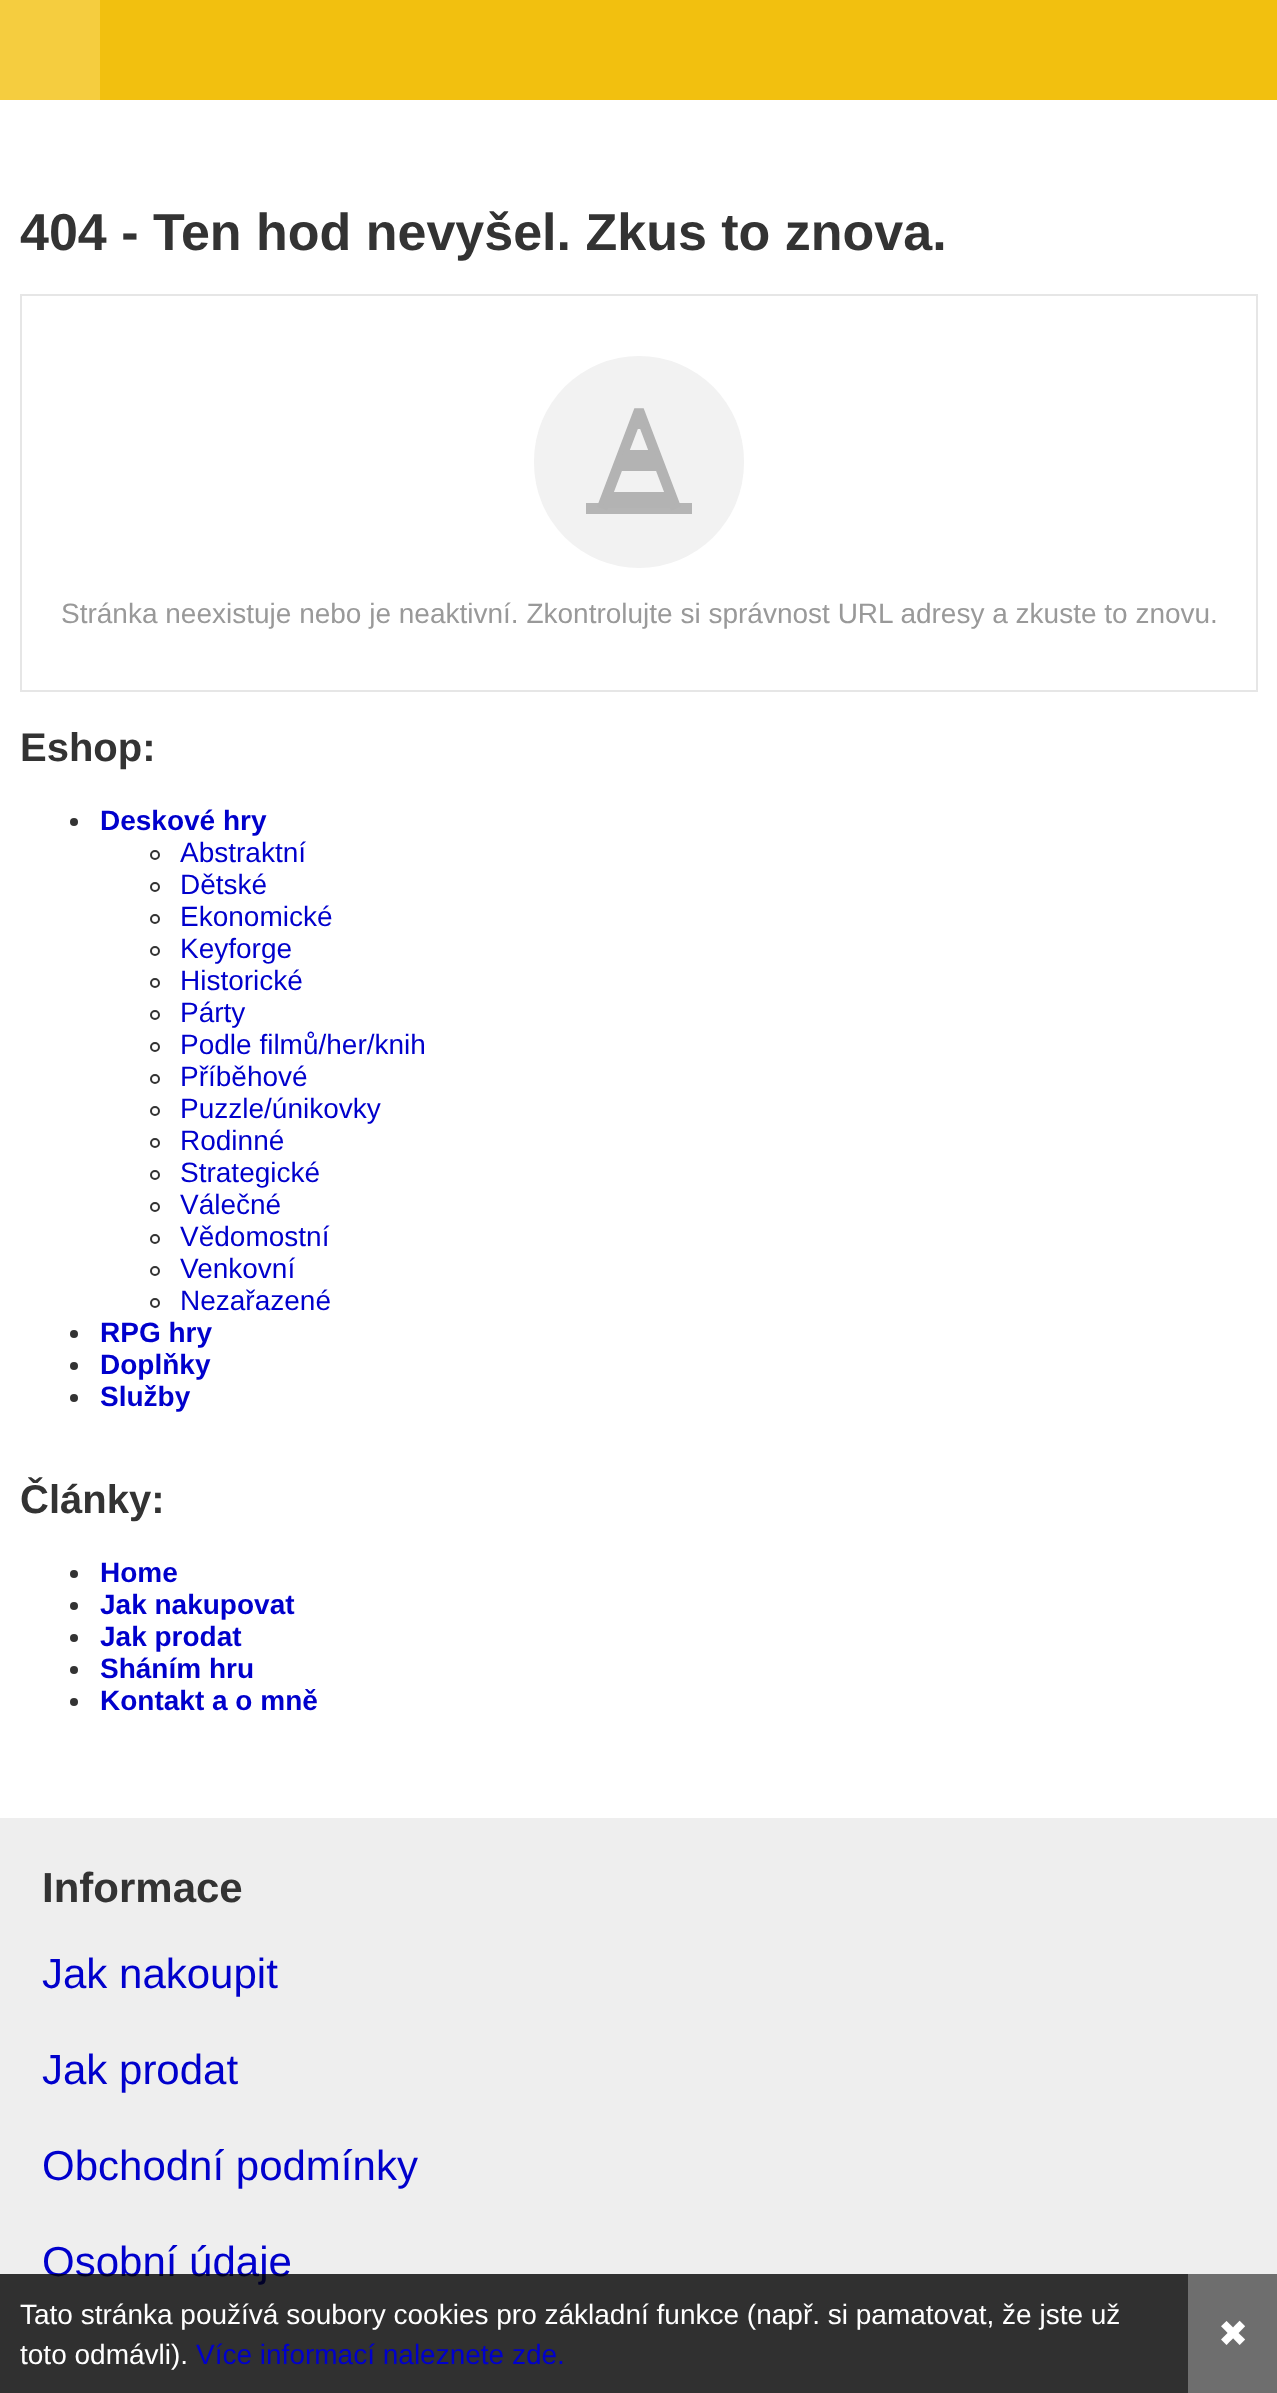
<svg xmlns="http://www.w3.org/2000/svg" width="1277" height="2393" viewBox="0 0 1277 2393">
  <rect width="100%" height="100%" fill="rgb(255,255,255)"/>
  <rect x="100" y="0" width="1177" height="100" fill="rgb(242,192,15)"/>
  <rect x="0" y="0" width="100" height="100" fill="rgb(245,205,63)"/>
  <text x="20" y="250" font-family="Liberation Sans" font-size="52" font-weight="bold" fill="rgb(51,51,51)">404 - Ten hod nevyšel. Zkus to znova.</text>
  <rect x="21" y="295" width="1236" height="396" fill="none" stroke="rgb(230,230,230)" stroke-width="2"/>
  <rect x="534" y="356" width="210" height="212" rx="105" fill="rgb(242,242,242)"/>
  <rect x="586" y="503" width="106" height="11" fill="rgb(181,181,181)"/>
  <path d="M676 508.5L640 413.5H638L602 508.5" fill="none" stroke="rgb(179,179,179)" stroke-width="10.6"/>
  <path d="M602 508H676L670 492H608Z" fill="rgb(179,179,179)"/>
  <path d="M662 471L654 450H624L616 471ZM646 429L640 413.5H638L631.5 429Z" fill="rgb(179,179,179)"/>
  <text x="61" y="623" font-family="Liberation Sans" font-size="28" fill="rgb(153,153,153)">Stránka neexistuje nebo je neaktivní. Zkontrolujte si správnost URL adresy a zkuste to znovu.</text>
  <text x="20" y="761" font-family="Liberation Sans" font-size="40" font-weight="bold" fill="rgb(51,51,51)">Eshop:</text>
  <circle cx="74" cy="822" r="4" fill="rgb(51,51,51)"/>
  <text x="100" y="830" font-family="Liberation Sans" font-size="28" font-weight="bold" fill="rgb(0,0,204)">Deskové hry</text>
  <circle cx="155" cy="855" r="4" fill="none" stroke="rgb(51,51,51)" stroke-width="2"/>
  <text x="180" y="862" font-family="Liberation Sans" font-size="28" fill="rgb(0,0,204)">Abstraktní</text>
  <circle cx="155" cy="887" r="4" fill="none" stroke="rgb(51,51,51)" stroke-width="2"/>
  <text x="180" y="894" font-family="Liberation Sans" font-size="28" fill="rgb(0,0,204)">Dětské</text>
  <circle cx="155" cy="919" r="4" fill="none" stroke="rgb(51,51,51)" stroke-width="2"/>
  <text x="180" y="926" font-family="Liberation Sans" font-size="28" fill="rgb(0,0,204)">Ekonomické</text>
  <circle cx="155" cy="951" r="4" fill="none" stroke="rgb(51,51,51)" stroke-width="2"/>
  <text x="180" y="958" font-family="Liberation Sans" font-size="28" fill="rgb(0,0,204)">Keyforge</text>
  <circle cx="155" cy="983" r="4" fill="none" stroke="rgb(51,51,51)" stroke-width="2"/>
  <text x="180" y="990" font-family="Liberation Sans" font-size="28" fill="rgb(0,0,204)">Historické</text>
  <circle cx="155" cy="1015" r="4" fill="none" stroke="rgb(51,51,51)" stroke-width="2"/>
  <text x="180" y="1022" font-family="Liberation Sans" font-size="28" fill="rgb(0,0,204)">Párty</text>
  <circle cx="155" cy="1047" r="4" fill="none" stroke="rgb(51,51,51)" stroke-width="2"/>
  <text x="180" y="1054" font-family="Liberation Sans" font-size="28" fill="rgb(0,0,204)">Podle filmů/her/knih</text>
  <circle cx="155" cy="1079" r="4" fill="none" stroke="rgb(51,51,51)" stroke-width="2"/>
  <text x="180" y="1086" font-family="Liberation Sans" font-size="28" fill="rgb(0,0,204)">Příběhové</text>
  <circle cx="155" cy="1111" r="4" fill="none" stroke="rgb(51,51,51)" stroke-width="2"/>
  <text x="180" y="1118" font-family="Liberation Sans" font-size="28" fill="rgb(0,0,204)">Puzzle/únikovky</text>
  <circle cx="155" cy="1143" r="4" fill="none" stroke="rgb(51,51,51)" stroke-width="2"/>
  <text x="180" y="1150" font-family="Liberation Sans" font-size="28" fill="rgb(0,0,204)">Rodinné</text>
  <circle cx="155" cy="1175" r="4" fill="none" stroke="rgb(51,51,51)" stroke-width="2"/>
  <text x="180" y="1182" font-family="Liberation Sans" font-size="28" fill="rgb(0,0,204)">Strategické</text>
  <circle cx="155" cy="1207" r="4" fill="none" stroke="rgb(51,51,51)" stroke-width="2"/>
  <text x="180" y="1214" font-family="Liberation Sans" font-size="28" fill="rgb(0,0,204)">Válečné</text>
  <circle cx="155" cy="1239" r="4" fill="none" stroke="rgb(51,51,51)" stroke-width="2"/>
  <text x="180" y="1246" font-family="Liberation Sans" font-size="28" fill="rgb(0,0,204)">Vědomostní</text>
  <circle cx="155" cy="1271" r="4" fill="none" stroke="rgb(51,51,51)" stroke-width="2"/>
  <text x="180" y="1278" font-family="Liberation Sans" font-size="28" fill="rgb(0,0,204)">Venkovní</text>
  <circle cx="155" cy="1303" r="4" fill="none" stroke="rgb(51,51,51)" stroke-width="2"/>
  <text x="180" y="1310" font-family="Liberation Sans" font-size="28" fill="rgb(0,0,204)">Nezařazené</text>
  <circle cx="74" cy="1334" r="4" fill="rgb(51,51,51)"/>
  <text x="100" y="1342" font-family="Liberation Sans" font-size="28" font-weight="bold" fill="rgb(0,0,204)">RPG hry</text>
  <circle cx="74" cy="1366" r="4" fill="rgb(51,51,51)"/>
  <text x="100" y="1374" font-family="Liberation Sans" font-size="28" font-weight="bold" fill="rgb(0,0,204)">Doplňky</text>
  <circle cx="74" cy="1398" r="4" fill="rgb(51,51,51)"/>
  <text x="100" y="1406" font-family="Liberation Sans" font-size="28" font-weight="bold" fill="rgb(0,0,204)">Služby</text>
  <text x="20" y="1513" font-family="Liberation Sans" font-size="40" font-weight="bold" fill="rgb(51,51,51)">Články:</text>
  <circle cx="74" cy="1574" r="4" fill="rgb(51,51,51)"/>
  <text x="100" y="1582" font-family="Liberation Sans" font-size="28" font-weight="bold" fill="rgb(0,0,204)">Home</text>
  <circle cx="74" cy="1606" r="4" fill="rgb(51,51,51)"/>
  <text x="100" y="1614" font-family="Liberation Sans" font-size="28" font-weight="bold" fill="rgb(0,0,204)">Jak nakupovat</text>
  <circle cx="74" cy="1638" r="4" fill="rgb(51,51,51)"/>
  <text x="100" y="1646" font-family="Liberation Sans" font-size="28" font-weight="bold" fill="rgb(0,0,204)">Jak prodat</text>
  <circle cx="74" cy="1670" r="4" fill="rgb(51,51,51)"/>
  <text x="100" y="1678" font-family="Liberation Sans" font-size="28" font-weight="bold" fill="rgb(0,0,204)">Sháním hru</text>
  <circle cx="74" cy="1702" r="4" fill="rgb(51,51,51)"/>
  <text x="100" y="1710" font-family="Liberation Sans" font-size="28" font-weight="bold" fill="rgb(0,0,204)">Kontakt a o mně</text>
  <rect x="0" y="1818" width="1277" height="575" fill="rgb(238,238,238)"/>
  <text x="42" y="1902" font-family="Liberation Sans" font-size="42" font-weight="bold" fill="rgb(51,51,51)">Informace</text>
  <g font-family="Liberation Sans" font-size="42" fill="rgb(0,0,204)">
    <text x="42" y="1988">Jak nakoupit</text>
    <text x="42" y="2084">Jak prodat</text>
    <text x="42" y="2180">Obchodní podmínky</text>
    <text x="42" y="2276">Osobní údaje</text>
  </g>
  <rect x="0" y="2274" width="1188" height="119" fill="rgba(0,0,0,0.8)"/>
  <g font-family="Liberation Sans" font-size="28" fill="rgb(255,255,255)">
    <text>
      <tspan x="20" y="2324">Tato stránka používá soubory cookies pro základní funkce (např. si pamatovat, že jste už</tspan>
      <tspan x="20" y="2364">toto odmávli).</tspan>
    </text>
  </g>
  <text x="196" y="2364" font-family="Liberation Sans" font-size="28" fill="rgb(0,0,204)">Více informací naleznete zde.</text>
  <rect x="1188" y="2274" width="89" height="119" fill="rgb(110,110,110)"/>
  <text x="1218" y="2346" font-family="DejaVu Sans" font-size="36" fill="rgb(255,255,255)">✖</text>
</svg>
